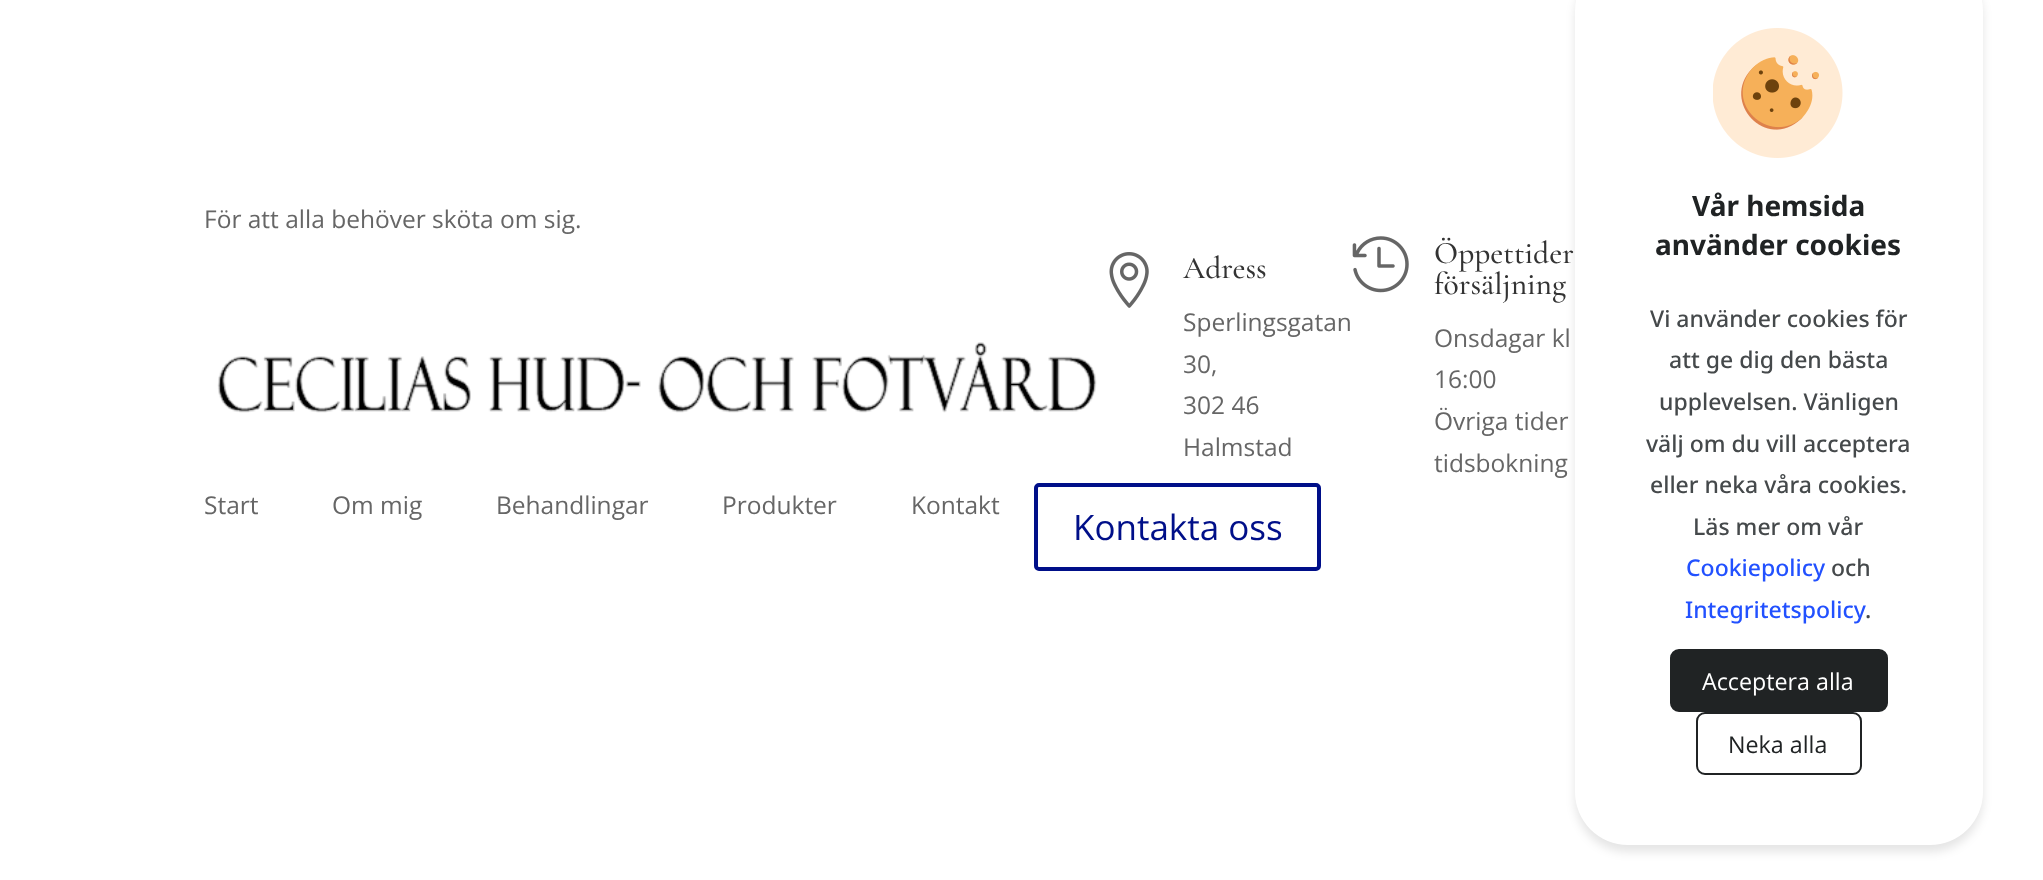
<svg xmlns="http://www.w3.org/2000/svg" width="2043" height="880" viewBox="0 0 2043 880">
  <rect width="100%" height="100%" fill="rgb(255,255,255)"/>
  <text x="204" y="228" font-family="Open Sans" font-size="24.5" fill="rgb(102,102,102)">För att alla behöver sköta om sig.</text>
  <image x="217" y="342" width="880" height="71" href="pic1.png"/>
  <image x="1109" y="252" width="40" height="56" href="pic2.png"/>
  <text x="1183" y="278" font-family="Cormorant Garamond" font-size="31.5" font-weight="500" fill="rgb(51,51,51)">Adress</text>
  <g font-family="Open Sans" font-size="24.5" fill="rgb(102,102,102)">
    <text>
      <tspan x="1183" y="331">Sperlingsgatan</tspan>
      <tspan x="1183" y="373">30,</tspan>
      <tspan x="1183" y="414">302 46</tspan>
      <tspan x="1183" y="456">Halmstad</tspan>
    </text>
  </g>
  <image x="1352" y="236" width="57" height="57" href="pic3.png"/>
  <g font-family="Cormorant Garamond" font-size="31.5" font-weight="500" fill="rgb(51,51,51)">
    <text>
      <tspan x="1434" y="263">Öppettider</tspan>
      <tspan x="1434" y="294">försäljning</tspan>
    </text>
  </g>
  <g font-family="Open Sans" font-size="24.5" fill="rgb(102,102,102)">
    <text>
      <tspan x="1434" y="347">Onsdagar kl</tspan>
      <tspan x="1434" y="388">16:00</tspan>
      <tspan x="1434" y="430">Övriga tider</tspan>
      <tspan x="1434" y="472">tidsbokning</tspan>
    </text>
    <text x="204" y="514">Start</text>
    <text x="332" y="514">Om mig</text>
    <text x="496" y="514">Behandlingar</text>
    <text x="722" y="514">Produkter</text>
    <text x="911" y="514">Kontakt</text>
  </g>
  <rect x="1036" y="485" width="283" height="84" rx="3" fill="none" stroke="rgb(0,15,137)" stroke-width="4"/>
  <text x="1073" y="540" font-family="Open Sans" font-size="35" fill="rgb(0,15,137)">Kontakta oss</text>
  <rect x="1575" y="-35" width="408" height="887" rx="53" fill="rgba(0,0,0,0.1)" filter="blur(5px)"/>
  <rect x="1575" y="-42" width="408" height="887" rx="53" fill="rgb(255,255,255)"/>
  <image x="1713" y="28" width="130" height="130" href="pic4.png"/>
  <g font-family="Noto Sans" font-size="28" font-weight="bold" fill="rgb(32,35,36)">
    <text x="1692" y="216">Vår hemsida</text>
    <text x="1655" y="255">använder cookies</text>
  </g>
  <g font-family="Noto Sans" font-size="23" font-weight="500" fill="rgb(69,73,75)">
    <text x="1650" y="327">Vi använder cookies för</text>
    <text x="1669" y="368">att ge dig den bästa</text>
    <text x="1659" y="410">upplevelsen. Vänligen</text>
    <text x="1646" y="452">välj om du vill acceptera</text>
    <text x="1650" y="493">eller neka våra cookies.</text>
    <text x="1693" y="535">Läs mer om vår</text>
  </g>
  <text x="1686" y="576" font-family="Noto Sans" font-size="23" font-weight="500" fill="rgb(34,81,255)">Cookiepolicy</text>
  <text x="1831" y="576" font-family="Noto Sans" font-size="23" font-weight="500" fill="rgb(69,73,75)">och</text>
  <text x="1685" y="618" font-family="Noto Sans" font-size="23" font-weight="500" fill="rgb(34,81,255)">Integritetspolicy</text>
  <text x="1865" y="618" font-family="Noto Sans" font-size="23" font-weight="500" fill="rgb(69,73,75)">.</text>
  <rect x="1671" y="650" width="216" height="61" rx="8" fill="rgb(32,35,36)" stroke="rgb(32,35,36)" stroke-width="2"/>
  <text x="1702" y="690" font-family="Open Sans" font-size="23.25" fill="rgb(255,255,255)">Acceptera alla</text>
  <rect x="1697" y="713" width="164" height="61" rx="8" fill="none" stroke="rgb(32,35,36)" stroke-width="2"/>
  <text x="1728" y="753" font-family="Open Sans" font-size="23.25" fill="rgb(32,35,36)">Neka alla</text>
</svg>
